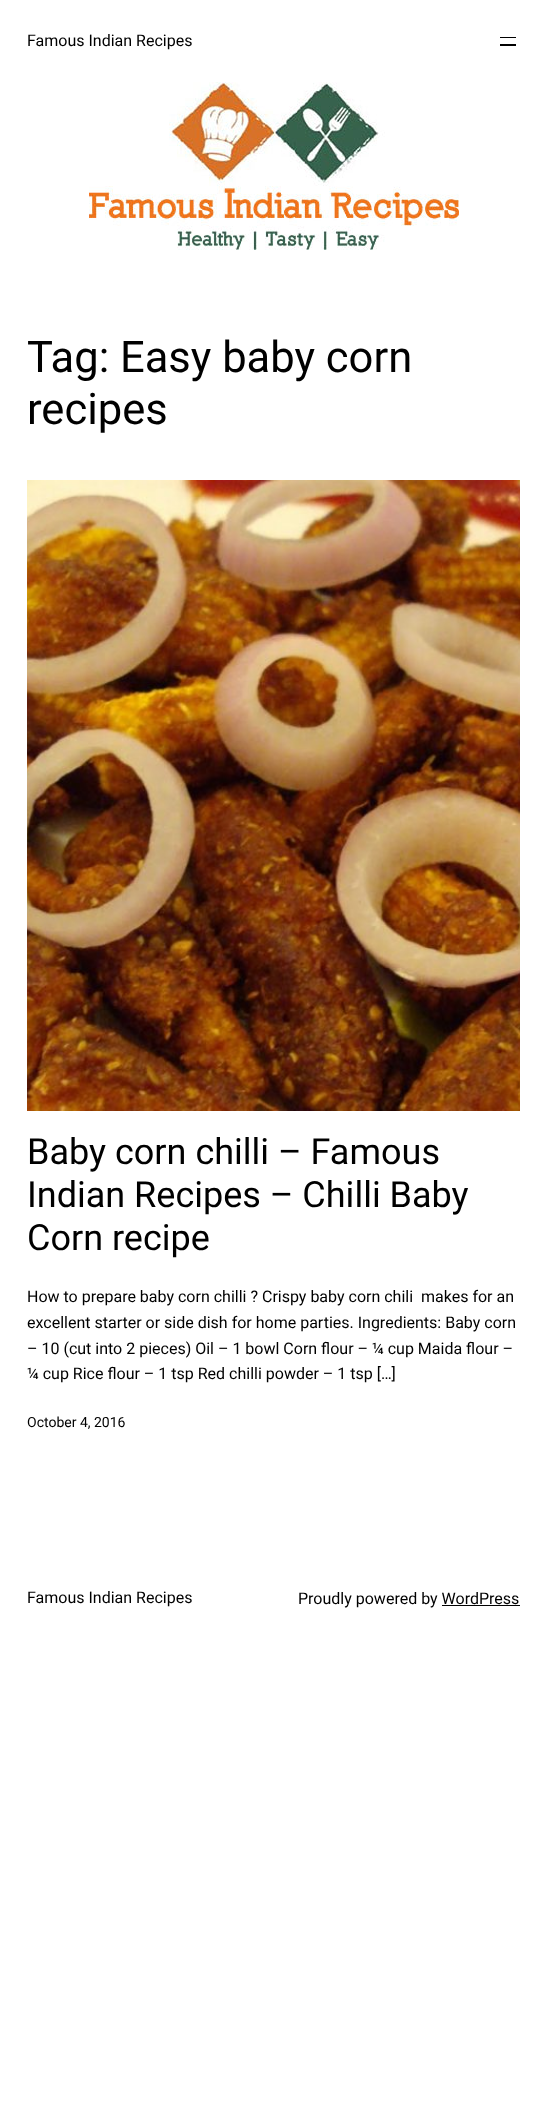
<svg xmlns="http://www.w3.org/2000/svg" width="547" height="2104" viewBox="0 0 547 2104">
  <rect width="100%" height="100%" fill="rgb(255,255,255)"/>
  <text x="27" y="46" font-family="Roboto" font-size="16" fill="rgb(0,0,0)">Famous Indian Recipes</text>
  <rect x="500" y="37" width="16" height="1" fill="rgb(0,0,0)"/>
  <rect x="500" y="44" width="16" height="2" fill="rgb(0,0,0)"/>
  <image x="89" y="82" width="370" height="168" href="pic1.png"/>
  <g font-family="Roboto" font-size="43.5" fill="rgb(0,0,0)">
    <text>
      <tspan x="27" y="372">Tag: Easy baby corn</tspan>
      <tspan x="27" y="424">recipes</tspan>
    </text>
  </g>
  <image x="27" y="480" width="493" height="631" href="pic2.png"/>
  <g font-family="Roboto" font-size="36" fill="rgb(0,0,0)">
    <text>
      <tspan x="27" y="1164">Baby corn chilli – Famous</tspan>
      <tspan x="27" y="1207">Indian Recipes – Chilli Baby</tspan>
      <tspan x="27" y="1250">Corn recipe</tspan>
    </text>
  </g>
  <g font-family="Roboto" font-size="16" fill="rgb(0,0,0)">
    <text xml:space="preserve"><tspan x="27" y="1302">How to prepare baby corn chilli ? Crispy baby corn chili  makes for an</tspan><tspan x="27" y="1328">excellent starter or side dish for home parties. Ingredients: Baby corn</tspan><tspan x="27" y="1354">– 10 (cut into 2 pieces) Oil – 1 bowl Corn flour – ¼ cup Maida flour –</tspan><tspan x="27" y="1379">¼ cup Rice flour – 1 tsp Red chilli powder – 1 tsp […]</tspan></text>
  </g>
  <text x="27" y="1427" font-family="Roboto" font-size="14" fill="rgb(0,0,0)">October 4, 2016</text>
  <g font-family="Roboto" font-size="16" fill="rgb(0,0,0)">
    <text x="27" y="1603">Famous Indian Recipes</text>
    <text x="298" y="1604">Proudly powered by WordPress</text>
  </g>
  <rect x="442" y="1605" width="78" height="1" fill="rgb(0,0,0)"/>
</svg>
